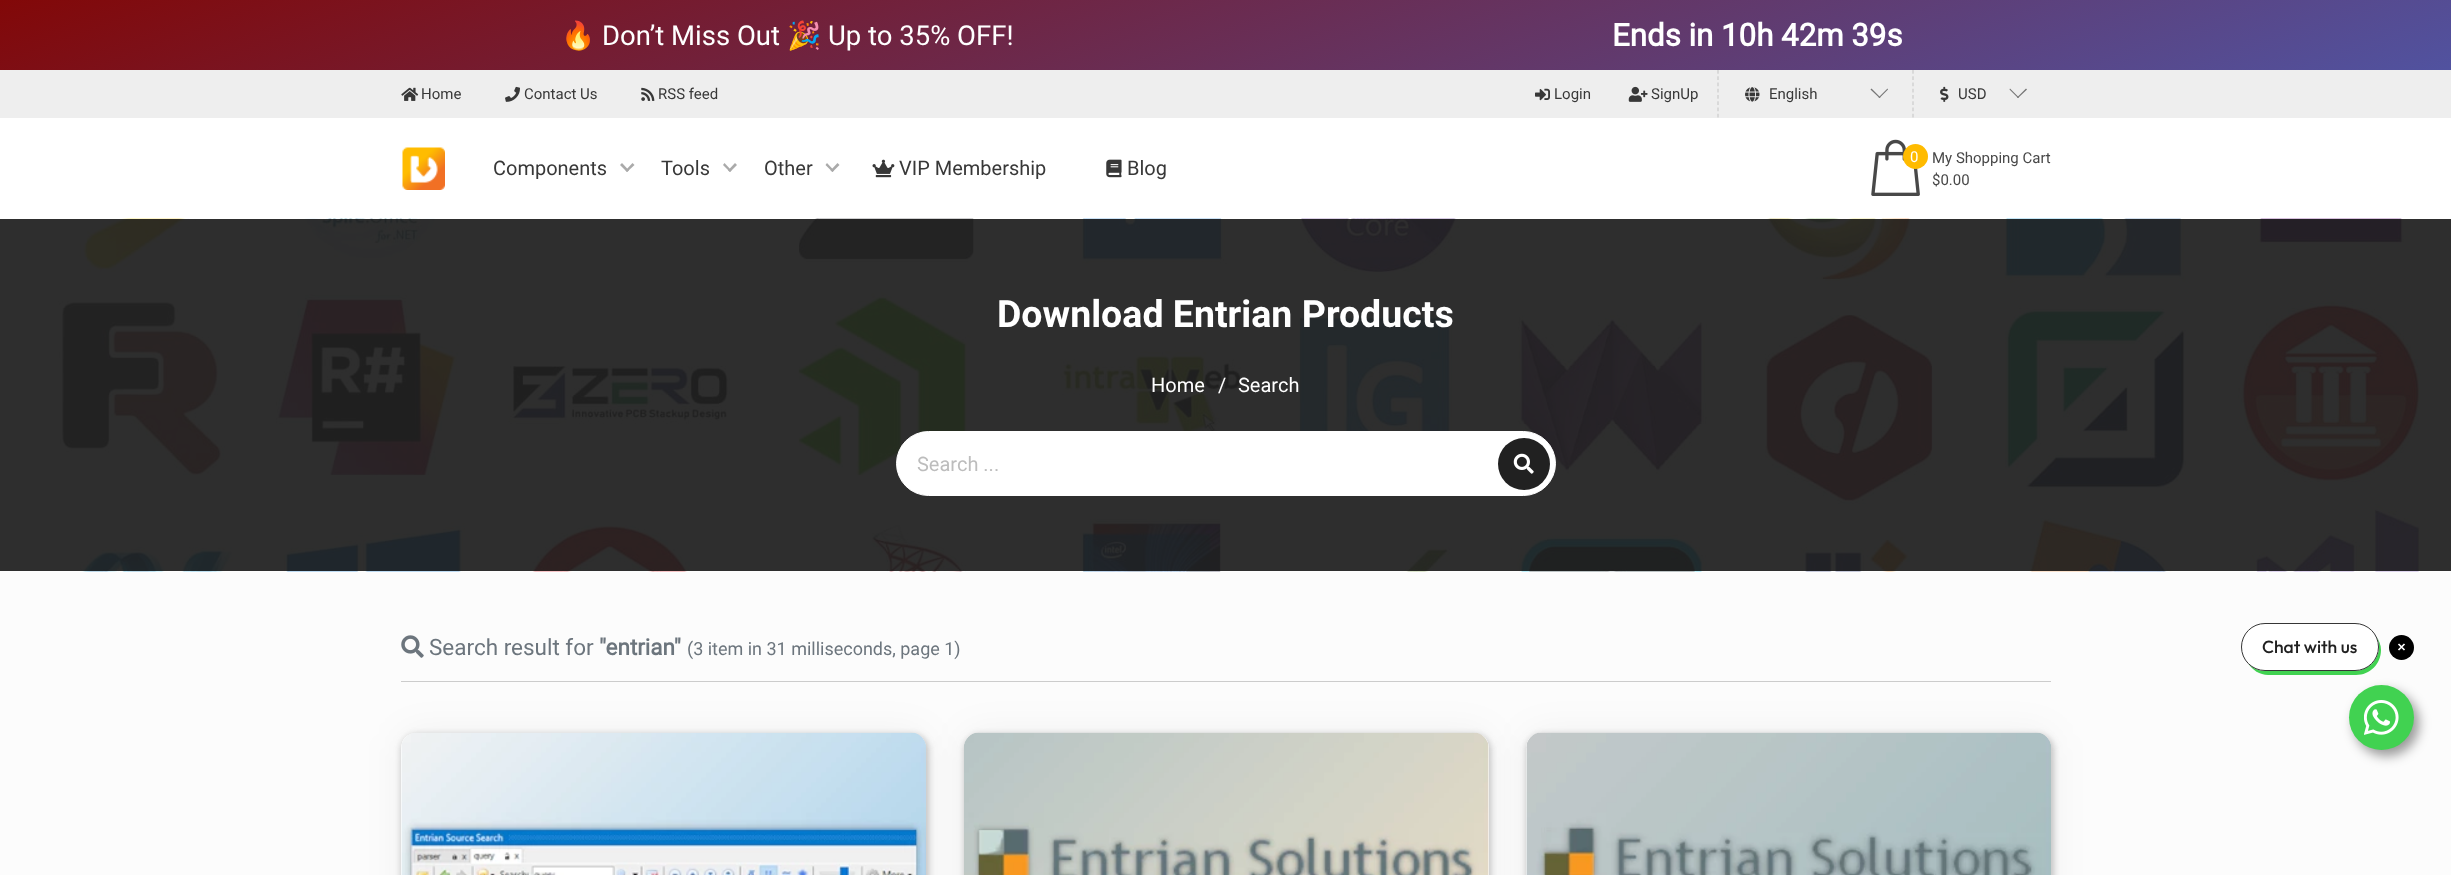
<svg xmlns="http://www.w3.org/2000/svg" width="2451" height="875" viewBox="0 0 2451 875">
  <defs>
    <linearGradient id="g1" gradientUnits="userSpaceOnUse" x1="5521" y1="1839" x2="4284" y2="-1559"><stop offset="0" stop-color="rgb(0,0,0)"/><stop offset="0.33" stop-color="rgb(100,7,181)"/><stop offset="0.67" stop-color="rgb(65,106,208)"/><stop offset="1" stop-color="rgb(130,8,8)"/></linearGradient>
  </defs>
  <rect width="100%" height="100%" fill="rgb(252,252,252)"/>
  <rect x="0" y="118" width="2451" height="101" fill="rgb(255,255,255)"/>
  <rect x="0" y="0" width="2451" height="70" fill="url(#g1)"/>
  <text x="561" y="45" font-family="Noto Color Emoji" font-size="27.5" fill="rgb(255,255,255)">🔥</text>
  <text x="602" y="45" font-family="Roboto" font-size="27.5" fill="rgb(255,255,255)">Don’t Miss Out</text>
  <text x="787" y="45" font-family="Noto Color Emoji" font-size="27.5" fill="rgb(255,255,255)">🎉</text>
  <text x="828" y="45" font-family="Roboto" font-size="27.5" fill="rgb(255,255,255)">Up to 35% OFF!</text>
  <text x="1612" y="46" font-family="Roboto" font-size="31.25" font-weight="bold" fill="rgb(255,255,255)">Ends in 10h 42m 39s</text>
  <rect x="0" y="70" width="2451" height="48" fill="rgb(238,238,238)"/>
  <image x="401" y="87" width="18" height="14" href="pic1.png"/>
  <text x="421" y="99" font-family="Roboto" font-size="15" fill="rgb(56,56,56)">Home</text>
  <image x="505" y="86" width="15" height="16" href="pic2.png"/>
  <text x="524" y="99" font-family="Roboto" font-size="15" fill="rgb(56,56,56)">Contact Us</text>
  <image x="641" y="87" width="14" height="14" href="pic3.png"/>
  <text x="658" y="99" font-family="Roboto" font-size="15" fill="rgb(56,56,56)">RSS feed</text>
  <image x="1535" y="88" width="15" height="13" href="pic4.png"/>
  <text x="1554" y="99" font-family="Roboto" font-size="15" fill="rgb(56,56,56)">Login</text>
  <image x="1628" y="86" width="20" height="16" href="pic5.png"/>
  <text x="1651" y="99" font-family="Roboto" font-size="15" fill="rgb(56,56,56)">SignUp</text>
  <path d="M1718 70V117.5" fill="none" stroke="rgb(204,204,204)" stroke-width="1.2" stroke-dasharray="3.75 2.5"/>
  <image x="1745" y="87" width="15" height="15" href="pic6.png"/>
  <text x="1769" y="99" font-family="Roboto" font-size="15" fill="rgb(56,56,56)">English</text>
  <path d="M1887.5 88.5L1888 89.5L1879.5 98L1878.5 97.5Z" fill="rgb(117,117,117)"/>
  <path d="M1871.5 88.5L1880.5 97.5L1879.5 98L1870.5 89.5Z" fill="rgb(117,117,117)"/>
  <path d="M1913 70V117.5" fill="none" stroke="rgb(204,204,204)" stroke-width="1.2" stroke-dasharray="3.75 2.5"/>
  <image x="1940" y="86" width="9" height="16" href="pic7.png"/>
  <text x="1958" y="99" font-family="Roboto" font-size="15" fill="rgb(56,56,56)">USD</text>
  <path d="M2026 88.5L2027 89.5L2018 98L2017 97.5Z" fill="rgb(117,117,117)"/>
  <path d="M2010 88.5L2019 97.5L2018 98L2009.5 89.5Z" fill="rgb(117,117,117)"/>
  <image x="402" y="147" width="43" height="43" href="pic8.png"/>
  <text x="493" y="175" font-family="Roboto" font-size="20" fill="rgb(56,56,56)">Components</text>
  <path d="M632.5 163L634.5 165L627 172L625.5 170.5Z" fill="rgb(170,170,170)"/>
  <path d="M622 163L629 170.5L627 172L620 165Z" fill="rgb(170,170,170)"/>
  <text x="661" y="175" font-family="Roboto" font-size="20" fill="rgb(56,56,56)">Tools</text>
  <path d="M735 163L737 165L730 172L728 170.5Z" fill="rgb(170,170,170)"/>
  <path d="M724.5 163L731.5 170.5L730 172L723 165Z" fill="rgb(170,170,170)"/>
  <text x="764" y="175" font-family="Roboto" font-size="20" fill="rgb(56,56,56)">Other</text>
  <path d="M837.5 163L839.5 165L832.5 172L830.5 170.5Z" fill="rgb(170,170,170)"/>
  <path d="M827 163L834 170.5L832.5 172L825.5 165Z" fill="rgb(170,170,170)"/>
  <image x="872" y="159" width="23" height="19" href="pic9.png"/>
  <text x="899" y="175" font-family="Roboto" font-size="20" fill="rgb(56,56,56)">VIP Membership</text>
  <image x="1106" y="159" width="16" height="19" href="pic10.png"/>
  <text x="1127" y="175" font-family="Roboto" font-size="20" fill="rgb(56,56,56)">Blog</text>
  <image x="1871" y="139" width="49" height="57" href="pic11.png"/>
  <circle cx="1915.5" cy="156.5" r="12.5" fill="rgb(255,187,0)"/>
  <text x="1910" y="162" font-family="Roboto" font-size="15" fill="rgb(255,255,255)">0</text>
  <g font-family="Roboto" font-size="15" fill="rgb(72,72,72)">
    <text>
      <tspan x="1932" y="163">My Shopping Cart</tspan>
      <tspan x="1932" y="185">$0.00</tspan>
    </text>
  </g>
  <image x="0" y="218" width="2451" height="354" href="pic12.png"/>
  <text x="997" y="327" font-family="'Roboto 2'" font-size="37.5" font-weight="bold" fill="rgb(255,255,255)">Download Entrian Products</text>
  <g font-family="Roboto" font-size="20" fill="rgb(255,255,255)">
    <text x="1151" y="392">Home</text>
    <text x="1218" y="392">/</text>
    <text x="1238" y="392">Search</text>
  </g>
  <rect x="896.5" y="431.5" width="659" height="64" rx="32" fill="rgb(255,255,255)" stroke="rgb(255,255,255)"/>
  <text x="917" y="471" font-family="Roboto" font-size="20" fill="rgb(189,189,189)">Search ...</text>
  <circle cx="1524" cy="464" r="26" fill="rgb(33,33,33)"/>
  <image x="1513" y="453" width="21" height="21" href="pic13.png"/>
  <image x="401" y="635" width="23" height="23" href="pic14.png"/>
  <text x="429" y="655" font-family="Roboto" font-size="22.5" fill="rgb(108,117,125)">Search result for</text>
  <text x="599" y="655" font-family="Roboto" font-size="22.5" font-weight="bold" fill="rgb(108,117,125)">"entrian"</text>
  <text x="687" y="655" font-family="Roboto" font-size="18" fill="rgb(108,117,125)">(3 item in 31 milliseconds, page 1)</text>
  <rect x="401" y="734" width="528" height="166" rx="16" fill="rgba(112,112,112,0.35)" filter="blur(3px)"/>
  <rect x="401" y="681" width="1650" height="1" fill="rgb(204,204,204)"/>
  <rect x="401" y="733" width="525" height="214" rx="15" fill="rgba(0,0,0,0.05)" filter="blur(19px)"/>
  <path d="M416 733H911C919.5 733 926 739.5 926 748V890H401V748C401 739.5 407.5 733 416 733Z" fill="rgb(255,255,255)"/>
  <image x="401" y="732" width="525" height="143" href="pic15.png"/>
  <rect x="964" y="734" width="527" height="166" rx="16" fill="rgba(112,112,112,0.35)" filter="blur(3px)"/>
  <rect x="964" y="733" width="525" height="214" rx="15" fill="rgba(0,0,0,0.05)" filter="blur(19px)"/>
  <path d="M979 733H1474C1482.5 733 1489 739.5 1489 748V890H964V748C964 739.5 970.5 733 979 733Z" fill="rgb(255,255,255)"/>
  <image x="964" y="732" width="525" height="143" href="pic16.png"/>
  <rect x="1526" y="734" width="528" height="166" rx="16" fill="rgba(112,112,112,0.35)" filter="blur(3px)"/>
  <rect x="1526" y="733" width="525" height="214" rx="15" fill="rgba(0,0,0,0.05)" filter="blur(19px)"/>
  <path d="M1541 733H2036C2044.5 733 2051 739.5 2051 748V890H1526V748C1526 739.5 1532.5 733 1541 733Z" fill="rgb(255,255,255)"/>
  <image x="1526" y="732" width="525" height="143" href="pic17.png"/>
  <rect x="2354" y="691" width="65" height="65" rx="32.5" fill="rgba(0,0,0,0.4)" filter="blur(6px)"/>
  <path d="M2248 663C2252 670 2260 675 2268 675H2356C2370 675 2381 664 2381 650C2381 645 2379 640 2376 636C2378 639 2379 643 2379 647C2379 660 2368 671 2354 671H2266C2258 671 2252 668 2248 663Z" fill="rgb(65,210,81)"/>
  <rect x="2241.5" y="623.5" width="137" height="47" rx="23.5" fill="rgb(255,255,255)" stroke="rgb(54,54,54)"/>
  <text x="2262" y="653" font-family="Outfit" font-size="17.5" font-weight="500" fill="rgb(32,32,32)">Chat with us</text>
  <circle cx="2401.5" cy="647.5" r="12.5" fill="rgb(0,0,0)"/>
  <path d="M2398.5 644L2404.5 650M2398.5 650L2404.5 644" fill="none" stroke="rgb(255,255,255)" stroke-width="1.7"/>
  <circle cx="2381.5" cy="717.5" r="32.5" fill="rgb(65,210,81)"/>
  <image x="2364" y="700" width="35" height="35" href="pic18.png"/>
</svg>
